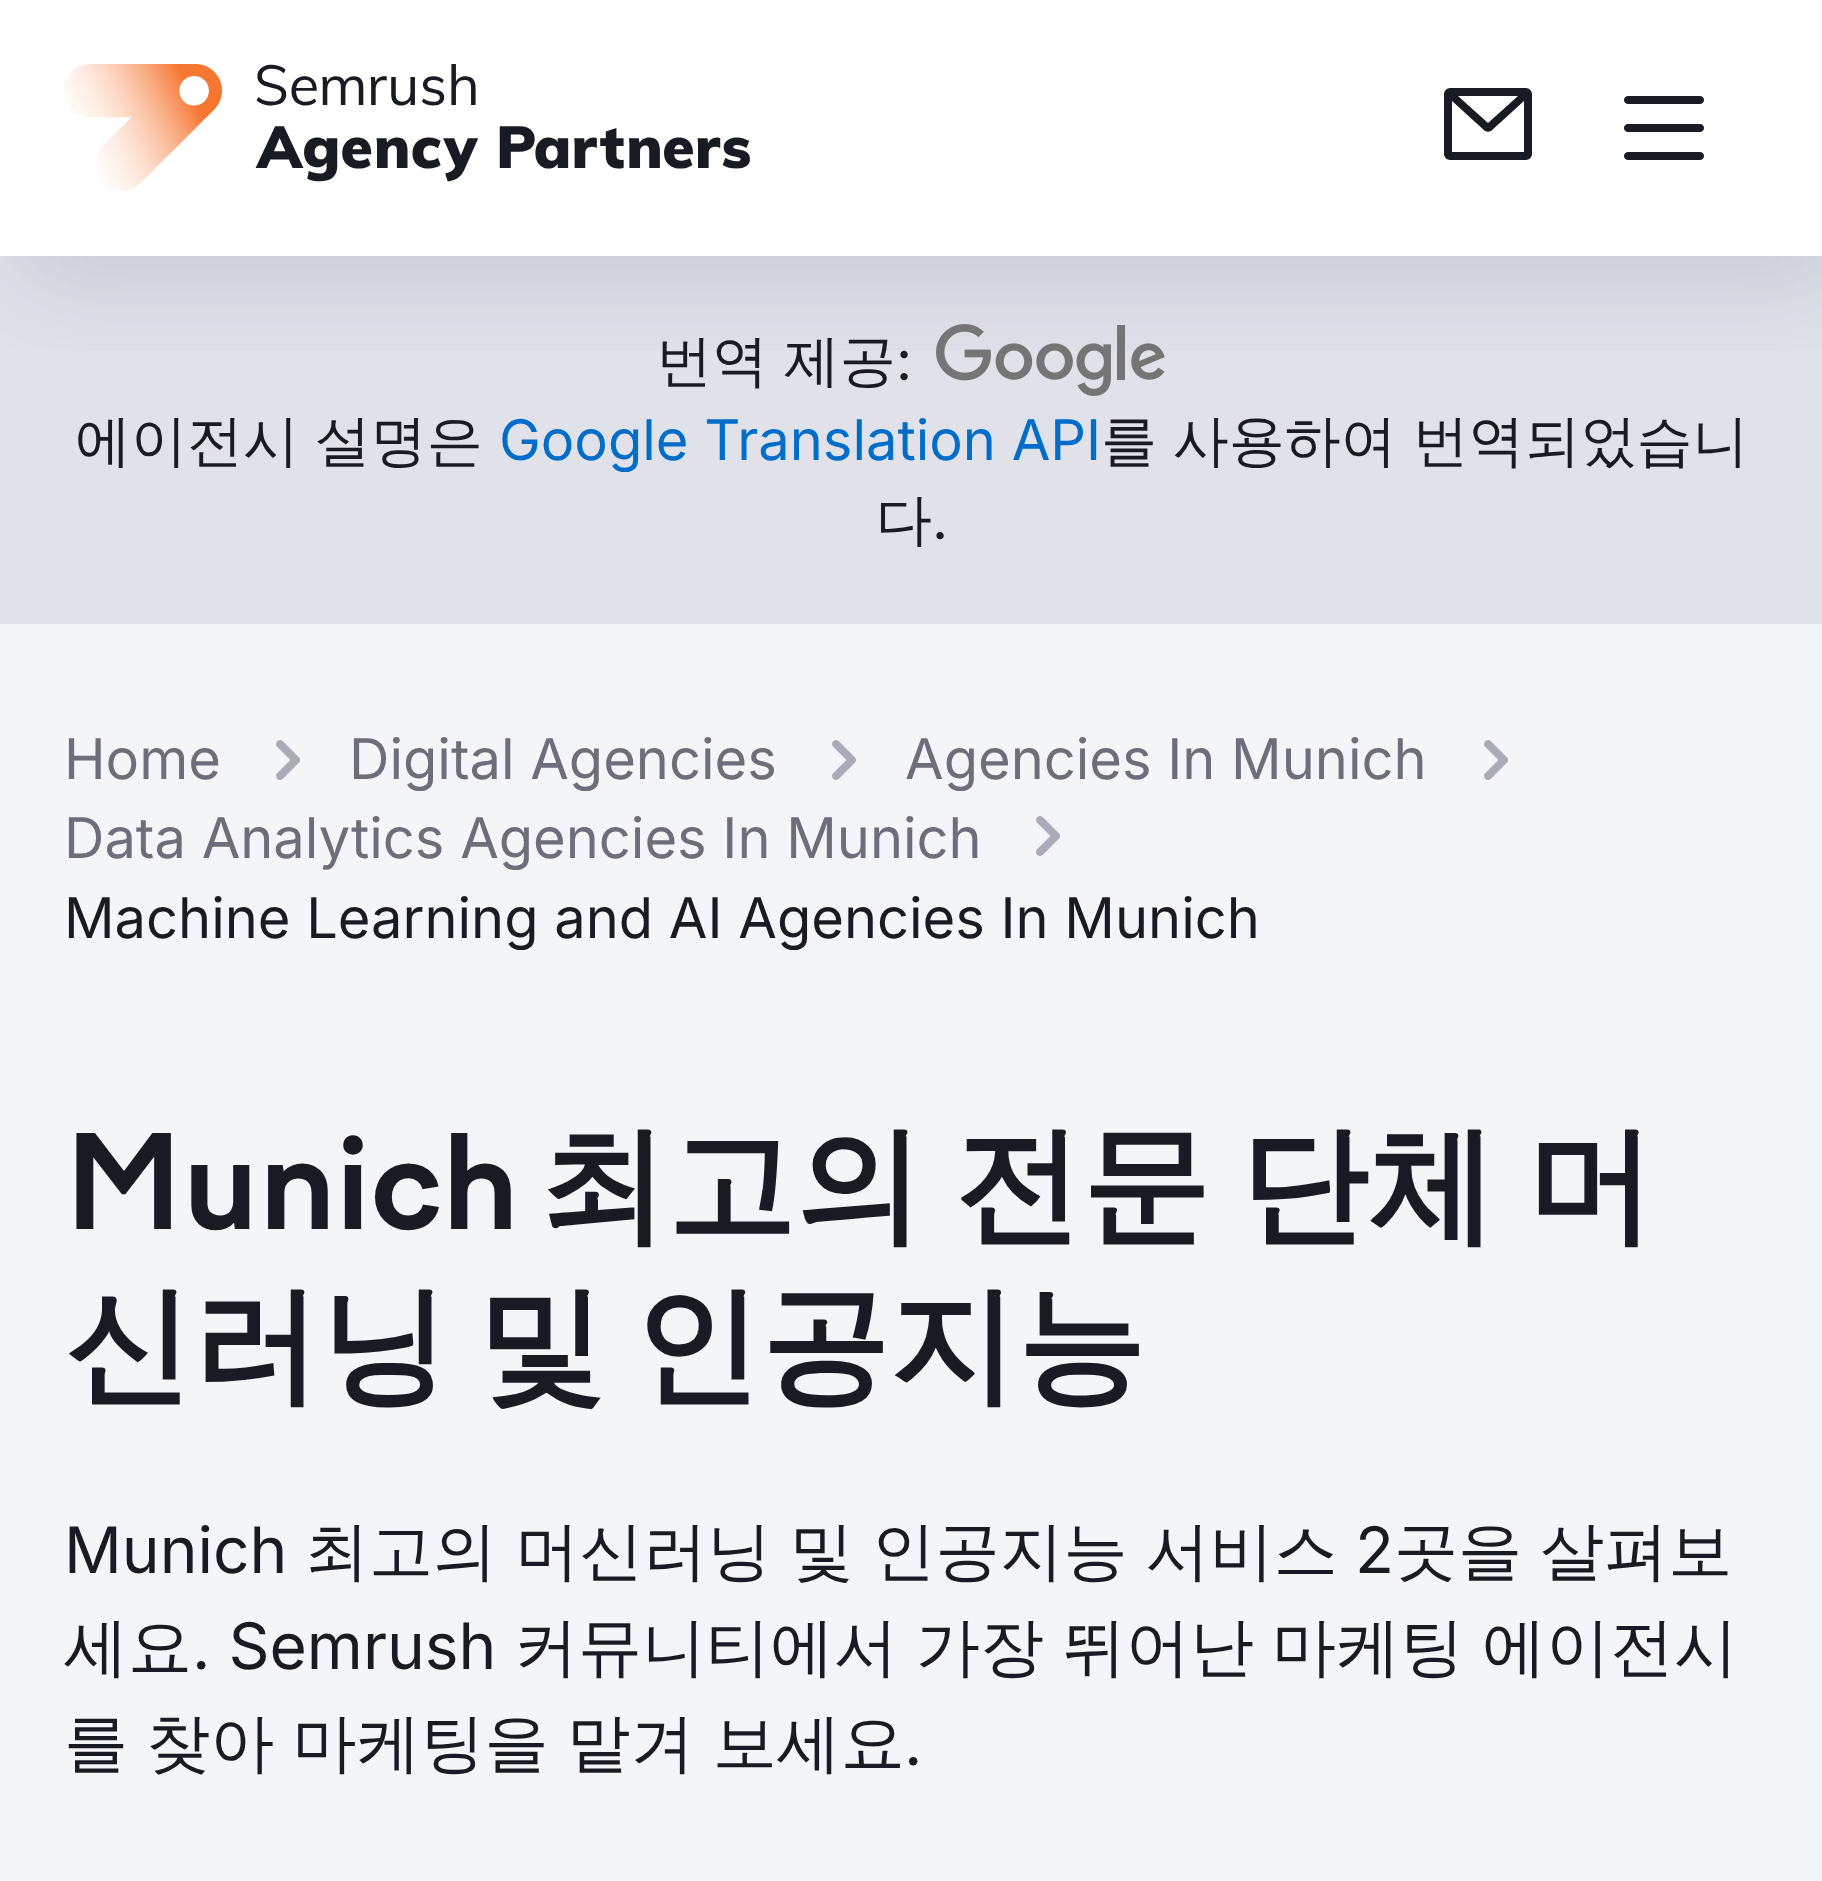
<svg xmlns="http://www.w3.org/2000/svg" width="1822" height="1881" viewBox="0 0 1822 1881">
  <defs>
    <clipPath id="clip1"><rect x="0" y="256" width="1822" height="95"/></clipPath>
  </defs>
  <rect width="100%" height="100%" fill="rgb(255,255,255)"/>
  <rect x="0" y="256" width="1822" height="368" fill="rgb(224,225,233)"/>
  <image x="936" y="324" width="229" height="72" href="pic3.png"/>
  <g clip-path="url(#clip1)">
    <rect x="20" y="20" width="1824" height="256" fill="rgba(137,141,154,0.3)" filter="blur(50px)"/>
  </g>
  <image x="64" y="64" width="686" height="128" href="pic1.png"/>
  <path d="M1450 88C1447 88 1444 91 1444 94V154C1444 157 1447 160 1450 160H1526C1529 160 1532 157 1532 154V94C1532 91 1529 88 1526 88ZM1452 101V152H1524V101L1491 131C1489 132 1487 132 1485 131ZM1518 96H1458L1488 123Z" fill="rgb(25,27,35)" fill-rule="evenodd"/>
  <image x="1624" y="96" width="80" height="64" href="pic2.png"/>
  <text x="656" y="380" word-spacing="-1" font-family="WenQuanYi Zen Hei" font-size="56" font-weight="500" fill="rgb(25,27,35)">번역 제공</text>
  <text x="896" y="380" font-family="Inter" font-size="56" fill="rgb(25,27,35)">:</text>
  <text x="75" y="460" word-spacing="-1" font-family="WenQuanYi Zen Hei" font-size="56" font-weight="500" fill="rgb(25,27,35)">에이전시 설명은</text>
  <text x="499" y="460" font-family="Inter" font-size="56" fill="rgb(0,109,202)">Google Translation API</text>
  <g font-family="WenQuanYi Zen Hei" font-size="56" font-weight="500" fill="rgb(25,27,35)">
    <text x="1101" y="460" word-spacing="-1">를 사용하여 번역되었습니</text>
    <text x="876" y="539">다</text>
  </g>
  <text x="932" y="539" font-family="Inter" font-size="56" fill="rgb(25,27,35)">.</text>
  <rect x="0" y="624" width="1822" height="1257" fill="rgb(244,245,249)"/>
  <text x="64" y="779" font-family="Inter" font-size="56" fill="rgb(108,110,121)">Home</text>
  <image x="276" y="740" width="24" height="40" href="pic4.png"/>
  <text x="349" y="779" font-family="Inter" font-size="56" fill="rgb(108,110,121)">Digital Agencies</text>
  <image x="832" y="740" width="24" height="40" href="pic4.png"/>
  <text x="905" y="779" font-family="Inter" font-size="56" fill="rgb(108,110,121)">Agencies In Munich</text>
  <image x="1484" y="740" width="24" height="40" href="pic4.png"/>
  <text x="64" y="858" font-family="Inter" font-size="56" fill="rgb(108,110,121)">Data Analytics Agencies In Munich</text>
  <image x="1036" y="816" width="24" height="40" href="pic4.png"/>
  <text x="64" y="938" font-family="Inter" font-size="56" fill="rgb(25,27,35)">Machine Learning and AI Agencies In Munich</text>
  <text x="64" y="1229" font-family="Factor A" font-size="128" font-weight="bold" fill="rgb(25,27,35)">Munich</text>
  <g font-family="WenQuanYi Zen Hei" font-size="128" font-weight="bold" fill="rgb(25,27,35)">
    <text x="539" y="1229" word-spacing="-8">최고의 전문 단체 머</text>
    <text x="64" y="1389" word-spacing="-10">신러닝 및 인공지능</text>
  </g>
  <text x="64" y="1573" font-family="Inter" font-size="64" fill="rgb(25,27,35)">Munich</text>
  <text x="305" y="1573" word-spacing="-1" font-family="WenQuanYi Zen Hei" font-size="64" font-weight="500" fill="rgb(25,27,35)">최고의 머신러닝 및 인공지능 서비스</text>
  <text x="1355" y="1573" font-family="Inter" font-size="64" fill="rgb(25,27,35)">2</text>
  <g font-family="WenQuanYi Zen Hei" font-size="64" font-weight="500" fill="rgb(25,27,35)">
    <text x="1394" y="1573" word-spacing="-1">곳을 살펴보</text>
    <text x="64" y="1669">세요</text>
  </g>
  <text x="192" y="1669" font-family="Inter" font-size="64" fill="rgb(25,27,35)">. Semrush</text>
  <g font-family="WenQuanYi Zen Hei" font-size="64" font-weight="500" fill="rgb(25,27,35)">
    <text x="514" y="1669">커뮤니티에서</text>
    <text x="916" y="1669">가장</text>
    <text x="1062" y="1669">뛰어난</text>
    <text x="1272" y="1669">마케팅</text>
    <text x="1482" y="1669">에이전시</text>
    <text x="64" y="1765" word-spacing="-1">를 찾아 마케팅을 맡겨 보세요</text>
  </g>
  <text x="904" y="1765" font-family="Inter" font-size="64" fill="rgb(25,27,35)">.</text>
</svg>
